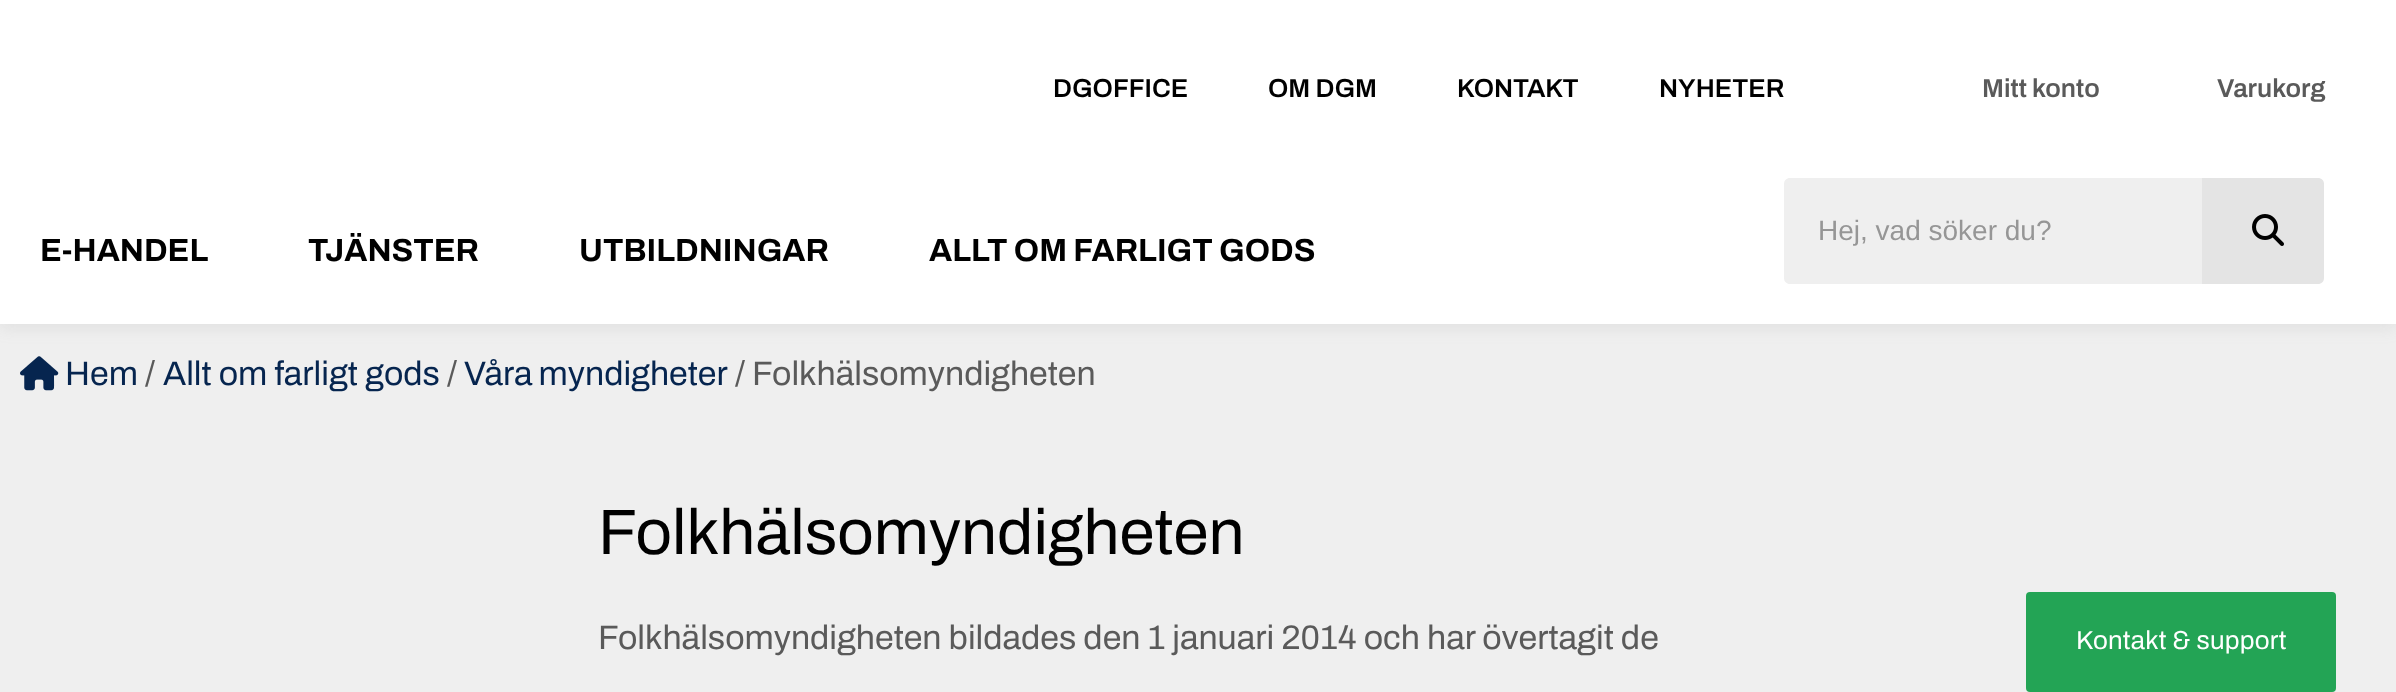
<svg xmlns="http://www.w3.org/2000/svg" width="2396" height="692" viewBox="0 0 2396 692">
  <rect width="100%" height="100%" fill="rgb(239,239,239)"/>
  <rect x="0" y="182" width="2396" height="146" fill="rgba(134,134,134,0.14)" filter="blur(8px)"/>
  <rect x="0" y="0" width="2396" height="324" fill="rgb(255,255,255)"/>
  <g font-family="Archivo" font-size="26" font-weight="600" fill="rgb(0,0,0)">
    <text x="1053" y="97">DGOFFICE</text>
    <text x="1268" y="97">OM DGM</text>
    <text x="1457" y="97">KONTAKT</text>
    <text x="1659" y="97">NYHETER</text>
  </g>
  <g font-family="Archivo" font-size="26" font-weight="600" fill="rgb(90,90,90)">
    <text x="1982" y="97">Mitt konto</text>
    <text x="2217" y="97">Varukorg</text>
  </g>
  <g font-family="Archivo" font-size="32" font-weight="bold" fill="rgb(0,0,0)">
    <text x="40" y="261">E-HANDEL</text>
    <text x="308" y="261">TJÄNSTER</text>
    <text x="579" y="261">UTBILDNINGAR</text>
    <text x="929" y="261">ALLT OM FARLIGT GODS</text>
  </g>
  <path d="M1790 178H2202V284H1790C1786.5 284 1784 281.5 1784 278V184C1784 180.5 1786.5 178 1790 178Z" fill="rgb(239,239,239)"/>
  <text x="1818" y="240" font-family="Liberation Sans" font-size="28" fill="rgb(150,150,150)">Hej, vad söker du?</text>
  <path d="M2202 178H2318C2321.5 178 2324 180.5 2324 184V278C2324 281.5 2321.5 284 2318 284H2202Z" fill="rgb(228,228,228)"/>
  <image x="2252" y="214" width="32" height="32" href="pic1.png"/>
  <image x="20" y="356" width="39" height="35" href="pic2.png"/>
  <text x="65" y="385" font-family="Archivo" font-size="34" fill="rgb(6,37,79)">Hem</text>
  <text x="145" y="385" font-family="Archivo" font-size="34" fill="rgb(90,90,90)">/</text>
  <text x="163" y="385" font-family="Archivo" font-size="34" fill="rgb(6,37,79)">Allt om farligt gods</text>
  <text x="447" y="385" font-family="Archivo" font-size="34" fill="rgb(90,90,90)">/</text>
  <text x="464" y="385" word-spacing="-1" font-family="Archivo" font-size="34" fill="rgb(6,37,79)">Våra myndigheter</text>
  <text x="735" y="385" font-family="Archivo" font-size="34" fill="rgb(90,90,90)">/ Folkhälsomyndigheten</text>
  <text x="598" y="554" font-family="Archivo" font-size="64" fill="rgb(0,0,0)">Folkhälsomyndigheten</text>
  <text x="598" y="649" font-family="Archivo" font-size="34" fill="rgb(90,90,90)">Folkhälsomyndigheten bildades den 1 januari 2014 och har övertagit de</text>
  <rect x="2026" y="592" width="310" height="100" rx="4" fill="rgb(35,164,85)"/>
  <text x="2076" y="649" font-family="Archivo" font-size="26" letter-spacing="0.25" fill="rgb(255,255,255)">Kontakt &amp; support</text>
</svg>
